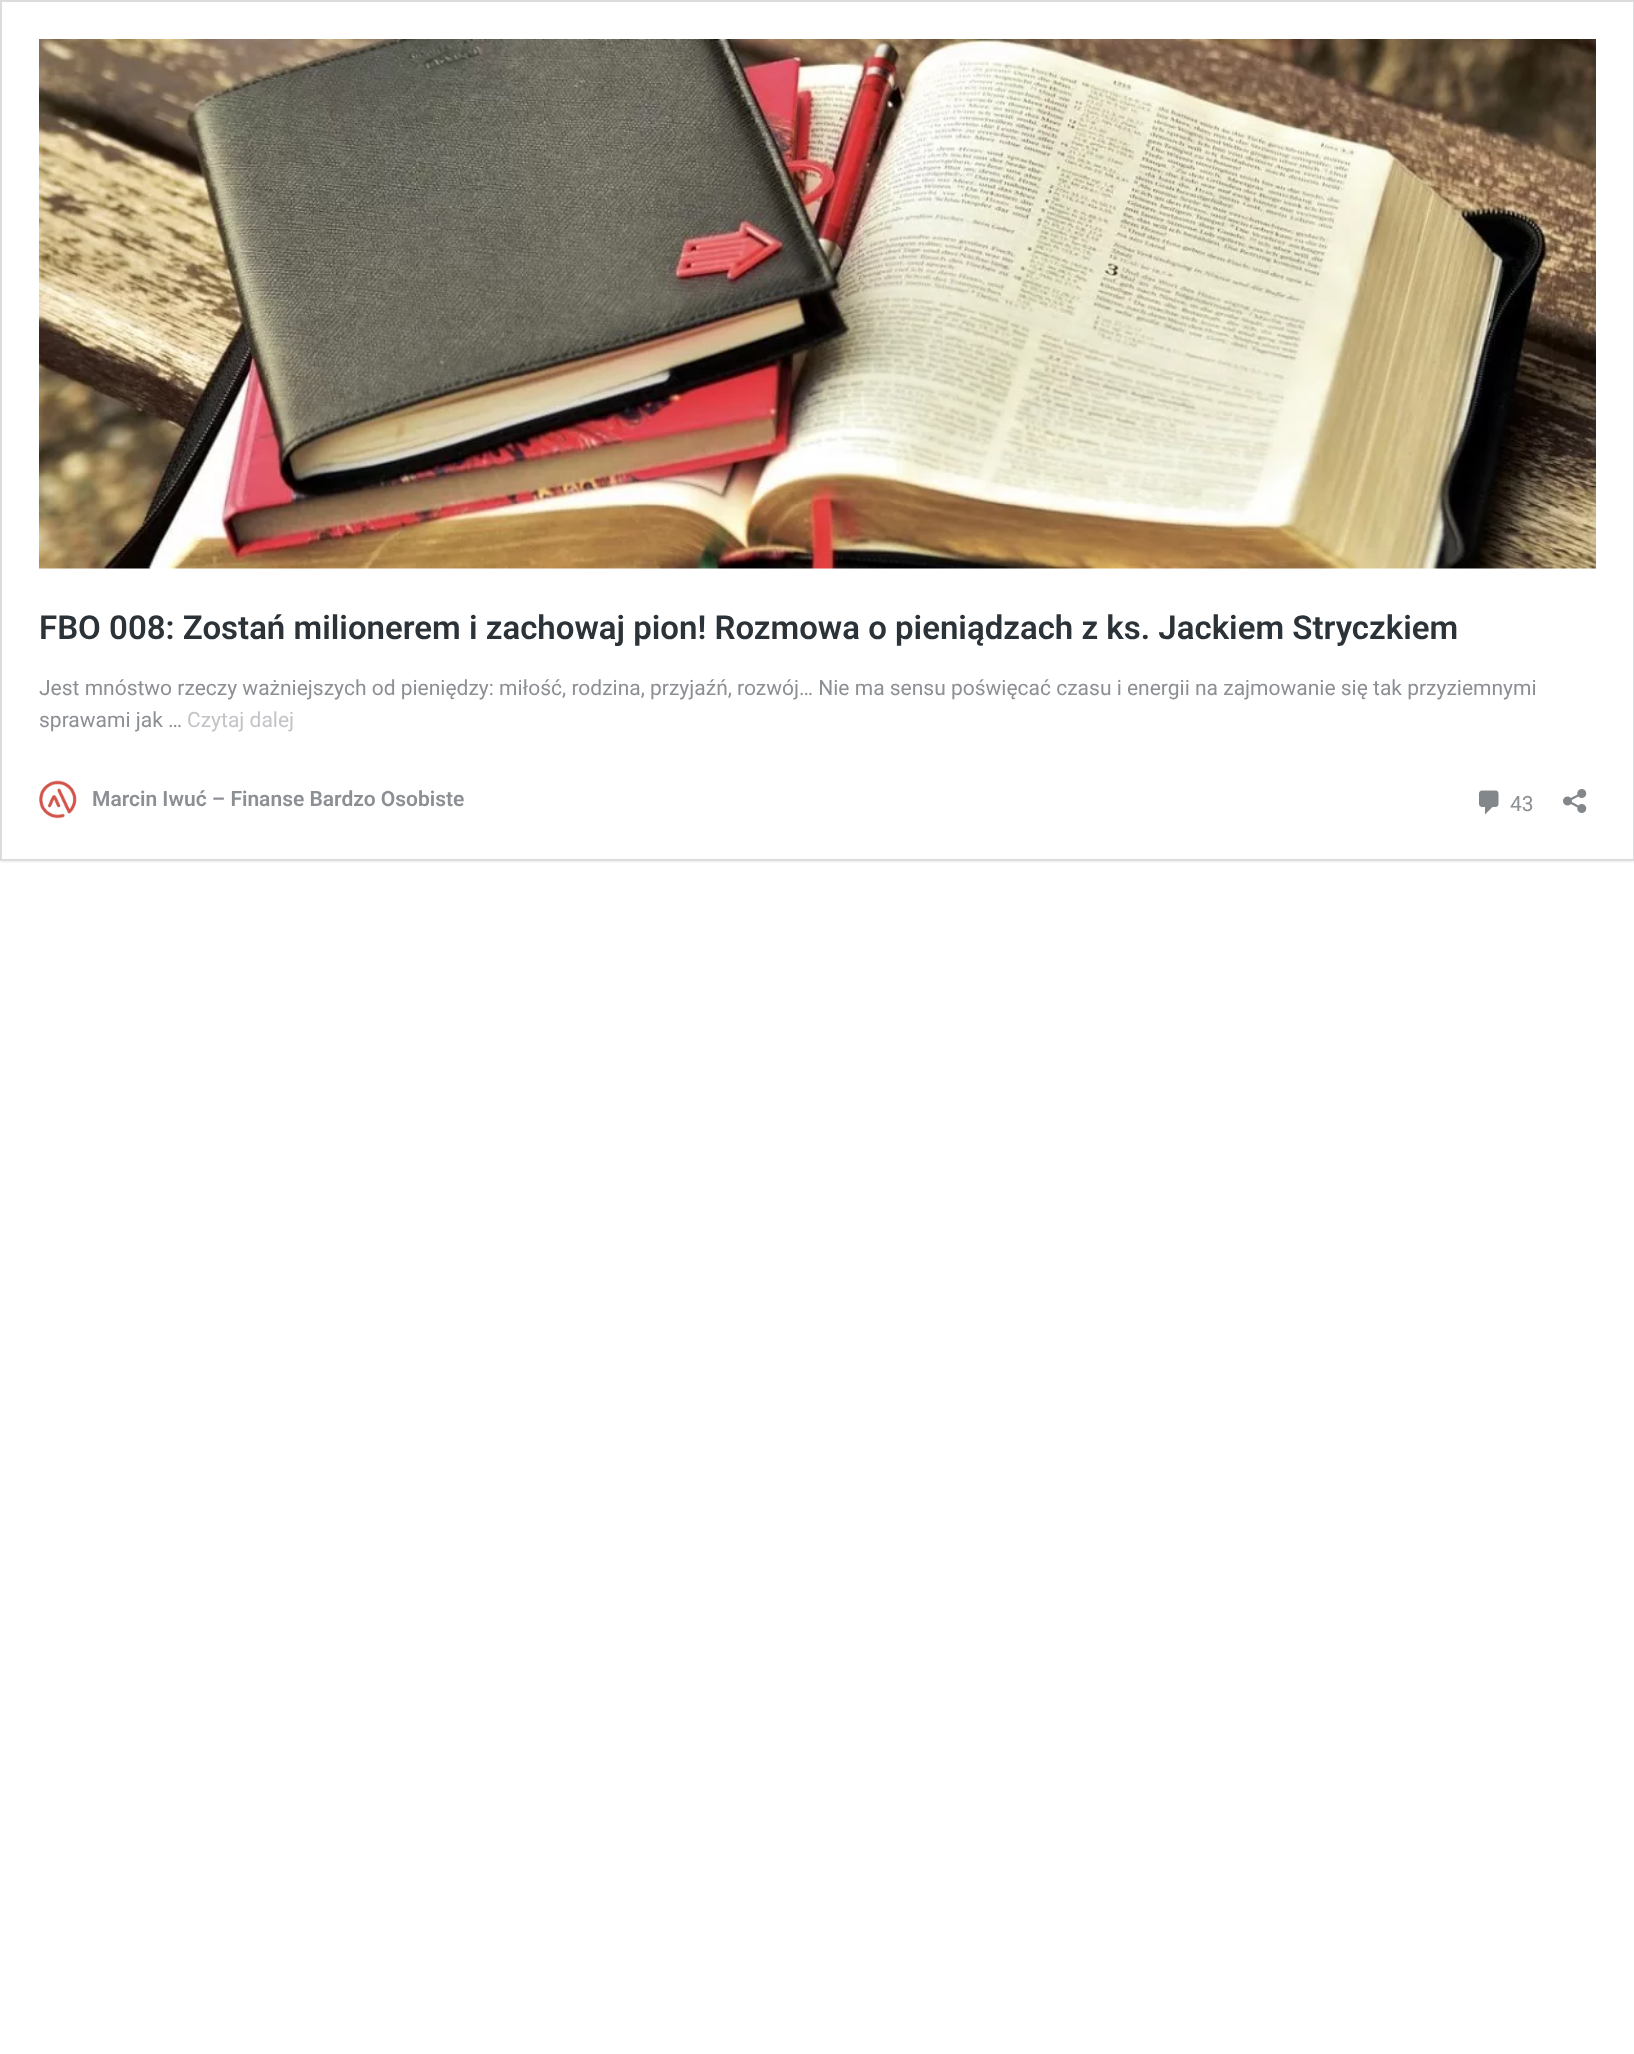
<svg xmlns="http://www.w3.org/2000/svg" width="1634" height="2054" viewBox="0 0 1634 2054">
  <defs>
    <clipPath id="clip1"><rect x="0" y="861" width="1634" height="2"/></clipPath>
  </defs>
  <rect width="100%" height="100%" fill="rgb(255,255,255)"/>
  <g clip-path="url(#clip1)">
    <rect x="0" y="2" width="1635" height="861" fill="rgba(0,0,0,0.05)" filter="blur(1px)"/>
  </g>
  <rect x="1" y="1" width="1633" height="859" fill="none" stroke="rgb(220,220,222)" stroke-width="2"/>
  <image x="39" y="39" width="1557" height="530" href="pic1.png"/>
  <text x="39" y="639" font-family="Roboto" font-size="33" font-weight="600" fill="rgb(44,51,56)">FBO 008: Zostań milionerem i zachowaj pion! Rozmowa o pieniądzach z ks. Jackiem Stryczkiem</text>
  <g font-family="Roboto" font-size="21" fill="rgb(140,143,148)">
    <text>
      <tspan x="39" y="695">Jest mnóstwo rzeczy ważniejszych od pieniędzy: miłość, rodzina, przyjaźń, rozwój… Nie ma sensu poświęcać czasu i energii na zajmowanie się tak przyziemnymi</tspan>
      <tspan x="39" y="727">sprawami jak …</tspan>
    </text>
  </g>
  <text x="187" y="727" font-family="Roboto" font-size="21" fill="rgb(195,196,199)">Czytaj dalej</text>
  <image x="39" y="780" width="38" height="39" href="pic2.png"/>
  <text x="92" y="806" font-family="Roboto" font-size="21" font-weight="600" fill="rgb(140,143,148)">Marcin Iwuć – Finanse Bardzo Osobiste</text>
  <image x="1479" y="790" width="20" height="25" href="pic3.png"/>
  <text x="1510" y="811" font-family="Roboto" font-size="21" fill="rgb(140,143,148)">43</text>
  <image x="1563" y="789" width="24" height="24" href="pic4.png"/>
</svg>
